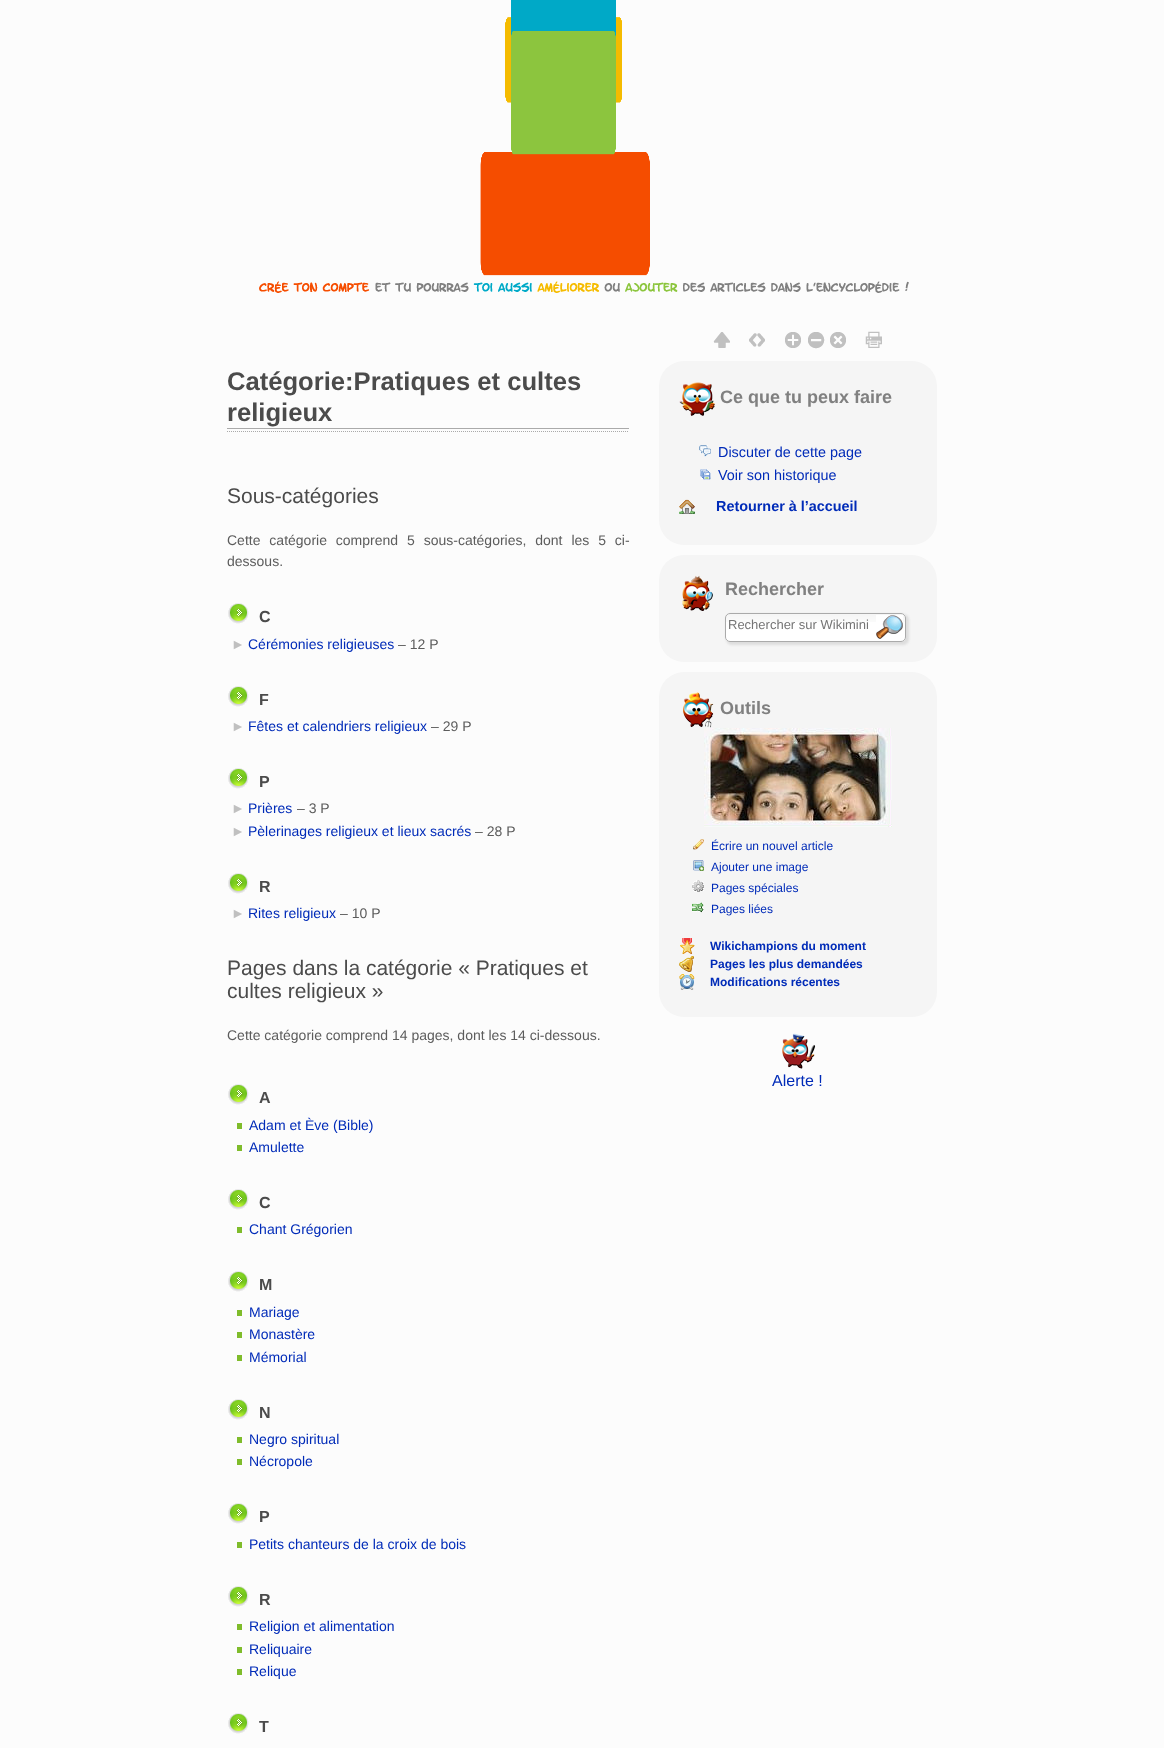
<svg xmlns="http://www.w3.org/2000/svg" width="1164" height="1748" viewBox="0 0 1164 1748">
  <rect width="100%" height="100%" fill="rgb(252,252,252)"/>
  <image x="480" y="0" width="170" height="276" href="pic1.png"/>
  <image x="259" y="281" width="650" height="12" href="pic2.png"/>
  <rect x="227" y="428" width="402" height="1" fill="rgb(170,170,170)"/>
  <g font-family="Liberation Sans" font-size="25.6" font-weight="bold" fill="rgb(75,75,75)">
    <text>
      <tspan x="227" y="390">Catégorie:Pratiques et cultes</tspan>
      <tspan x="227" y="421">religieux</tspan>
    </text>
  </g>
  <path d="M227 431.5H629" fill="none" stroke="rgb(170,170,170)" stroke-dasharray="1 1"/>
  <text x="227" y="503" font-family="Liberation Sans" font-size="21" fill="rgb(75,75,75)">Sous-catégories</text>
  <g font-family="Liberation Sans" font-size="14" fill="rgb(92,92,92)">
    <text>
      <tspan x="227" y="545" word-spacing="5">Cette catégorie comprend 5 sous-catégories, dont les 5 ci-</tspan>
      <tspan x="227" y="566">dessous.</tspan>
    </text>
  </g>
  <image x="228" y="603" width="21" height="21" href="pic3.png"/>
  <text x="259" y="622" font-family="Liberation Sans" font-size="16" font-weight="bold" fill="rgb(75,75,75)">C</text>
  <text x="231" y="649" font-family="Liberation Sans" font-size="14" fill="rgb(192,192,192)">►</text>
  <text x="248" y="649" font-family="Liberation Sans" font-size="14" fill="rgb(0,43,184)">Cérémonies religieuses</text>
  <text x="398" y="649" font-family="Liberation Sans" font-size="14" fill="rgb(92,92,92)">– 12 P</text>
  <image x="228" y="686" width="21" height="21" href="pic3.png"/>
  <text x="259" y="705" font-family="Liberation Sans" font-size="16" font-weight="bold" fill="rgb(75,75,75)">F</text>
  <text x="231" y="731" font-family="Liberation Sans" font-size="14" fill="rgb(192,192,192)">►</text>
  <text x="248" y="731" font-family="Liberation Sans" font-size="14" fill="rgb(0,43,184)">Fêtes et calendriers religieux</text>
  <text x="431" y="731" font-family="Liberation Sans" font-size="14" fill="rgb(92,92,92)">– 29 P</text>
  <image x="228" y="768" width="21" height="21" href="pic3.png"/>
  <text x="259" y="787" font-family="Liberation Sans" font-size="16" font-weight="bold" fill="rgb(75,75,75)">P</text>
  <text x="231" y="813" font-family="Liberation Sans" font-size="14" fill="rgb(192,192,192)">►</text>
  <text x="248" y="813" font-family="Liberation Sans" font-size="14" fill="rgb(0,43,184)">Prières</text>
  <text x="297" y="813" font-family="Liberation Sans" font-size="14" fill="rgb(92,92,92)">– 3 P</text>
  <text x="231" y="836" font-family="Liberation Sans" font-size="14" fill="rgb(192,192,192)">►</text>
  <text x="248" y="836" font-family="Liberation Sans" font-size="14" fill="rgb(0,43,184)">Pèlerinages religieux et lieux sacrés</text>
  <text x="475" y="836" font-family="Liberation Sans" font-size="14" fill="rgb(92,92,92)">– 28 P</text>
  <image x="228" y="873" width="21" height="21" href="pic3.png"/>
  <text x="259" y="892" font-family="Liberation Sans" font-size="16" font-weight="bold" fill="rgb(75,75,75)">R</text>
  <text x="231" y="918" font-family="Liberation Sans" font-size="14" fill="rgb(192,192,192)">►</text>
  <text x="248" y="918" font-family="Liberation Sans" font-size="14" fill="rgb(0,43,184)">Rites religieux</text>
  <text x="340" y="918" font-family="Liberation Sans" font-size="14" fill="rgb(92,92,92)">– 10 P</text>
  <g font-family="Liberation Sans" font-size="21" fill="rgb(75,75,75)">
    <text>
      <tspan x="227" y="975">Pages dans la catégorie « Pratiques et</tspan>
      <tspan x="227" y="998">cultes religieux »</tspan>
    </text>
  </g>
  <text x="227" y="1040" font-family="Liberation Sans" font-size="14" fill="rgb(92,92,92)">Cette catégorie comprend 14 pages, dont les 14 ci-dessous.</text>
  <image x="228" y="1084" width="21" height="21" href="pic3.png"/>
  <text x="259" y="1103" font-family="Liberation Sans" font-size="16" font-weight="bold" fill="rgb(75,75,75)">A</text>
  <rect x="237" y="1123" width="5" height="6" fill="rgb(127,188,43)"/>
  <text x="249" y="1130" font-family="Liberation Sans" font-size="14" fill="rgb(0,43,184)">Adam et Ève (Bible)</text>
  <rect x="237" y="1145" width="5" height="6" fill="rgb(127,188,43)"/>
  <text x="249" y="1152" font-family="Liberation Sans" font-size="14" fill="rgb(0,43,184)">Amulette</text>
  <image x="228" y="1189" width="21" height="21" href="pic3.png"/>
  <text x="259" y="1208" font-family="Liberation Sans" font-size="16" font-weight="bold" fill="rgb(75,75,75)">C</text>
  <rect x="237" y="1227" width="5" height="6" fill="rgb(127,188,43)"/>
  <text x="249" y="1234" font-family="Liberation Sans" font-size="14" fill="rgb(0,43,184)">Chant Grégorien</text>
  <image x="228" y="1271" width="21" height="21" href="pic3.png"/>
  <text x="259" y="1290" font-family="Liberation Sans" font-size="16" font-weight="bold" fill="rgb(75,75,75)">M</text>
  <rect x="237" y="1310" width="5" height="6" fill="rgb(127,188,43)"/>
  <text x="249" y="1317" font-family="Liberation Sans" font-size="14" fill="rgb(0,43,184)">Mariage</text>
  <rect x="237" y="1332" width="5" height="6" fill="rgb(127,188,43)"/>
  <text x="249" y="1339" font-family="Liberation Sans" font-size="14" fill="rgb(0,43,184)">Monastère</text>
  <rect x="237" y="1355" width="5" height="6" fill="rgb(127,188,43)"/>
  <text x="249" y="1362" font-family="Liberation Sans" font-size="14" fill="rgb(0,43,184)">Mémorial</text>
  <image x="228" y="1399" width="21" height="21" href="pic3.png"/>
  <text x="259" y="1418" font-family="Liberation Sans" font-size="16" font-weight="bold" fill="rgb(75,75,75)">N</text>
  <rect x="237" y="1437" width="5" height="6" fill="rgb(127,188,43)"/>
  <text x="249" y="1444" font-family="Liberation Sans" font-size="14" fill="rgb(0,43,184)">Negro spiritual</text>
  <rect x="237" y="1459" width="5" height="6" fill="rgb(127,188,43)"/>
  <text x="249" y="1466" font-family="Liberation Sans" font-size="14" fill="rgb(0,43,184)">Nécropole</text>
  <image x="228" y="1503" width="21" height="21" href="pic3.png"/>
  <text x="259" y="1522" font-family="Liberation Sans" font-size="16" font-weight="bold" fill="rgb(75,75,75)">P</text>
  <rect x="237" y="1542" width="5" height="6" fill="rgb(127,188,43)"/>
  <text x="249" y="1549" font-family="Liberation Sans" font-size="14" fill="rgb(0,43,184)">Petits chanteurs de la croix de bois</text>
  <image x="228" y="1586" width="21" height="21" href="pic3.png"/>
  <text x="259" y="1605" font-family="Liberation Sans" font-size="16" font-weight="bold" fill="rgb(75,75,75)">R</text>
  <rect x="237" y="1624" width="5" height="6" fill="rgb(127,188,43)"/>
  <text x="249" y="1631" font-family="Liberation Sans" font-size="14" fill="rgb(0,43,184)">Religion et alimentation</text>
  <rect x="237" y="1647" width="5" height="6" fill="rgb(127,188,43)"/>
  <text x="249" y="1654" font-family="Liberation Sans" font-size="14" fill="rgb(0,43,184)">Reliquaire</text>
  <rect x="237" y="1669" width="5" height="6" fill="rgb(127,188,43)"/>
  <text x="249" y="1676" font-family="Liberation Sans" font-size="14" fill="rgb(0,43,184)">Relique</text>
  <image x="228" y="1713" width="21" height="21" href="pic3.png"/>
  <text x="259" y="1732" font-family="Liberation Sans" font-size="16" font-weight="bold" fill="rgb(75,75,75)">T</text>
  <image x="713" y="332" width="17" height="16" href="pic4.png"/>
  <image x="749" y="333" width="16" height="14" href="pic5.png"/>
  <image x="785" y="332" width="16" height="16" href="pic6.png"/>
  <image x="808" y="332" width="17" height="17" href="pic7.png"/>
  <image x="830" y="332" width="16" height="16" href="pic8.png"/>
  <image x="865" y="331" width="17" height="17" href="pic9.png"/>
  <rect x="659" y="361" width="278" height="184" rx="25" fill="rgb(245,245,245)"/>
  <image x="679" y="382" width="36" height="34" href="pic10.png"/>
  <text x="720" y="403" font-family="Liberation Sans" font-size="18" font-weight="bold" fill="rgb(128,128,128)">Ce que tu peux faire</text>
  <image x="699" y="445" width="12" height="12" href="pic11.png"/>
  <text x="718" y="457" font-family="Liberation Sans" font-size="14.4" fill="rgb(0,43,184)">Discuter de cette page</text>
  <image x="700" y="469" width="11" height="11" href="pic12.png"/>
  <text x="718" y="480" font-family="Liberation Sans" font-size="14.4" fill="rgb(0,43,184)">Voir son historique</text>
  <image x="679" y="499" width="16" height="15" href="pic13.png"/>
  <text x="716" y="511" font-family="Liberation Sans" font-size="14.4" font-weight="bold" fill="rgb(0,43,184)">Retourner à l’accueil</text>
  <rect x="659" y="555" width="278" height="107" rx="25" fill="rgb(245,245,245)"/>
  <image x="682" y="575" width="31" height="36" href="pic14.png"/>
  <text x="725" y="595" font-family="Liberation Sans" font-size="18" font-weight="bold" fill="rgb(128,128,128)">Rechercher</text>
  <rect x="726" y="614" width="183" height="31" rx="6" fill="rgb(221,221,221)" filter="blur(1px)"/>
  <rect x="725" y="613" width="181" height="29" rx="5" fill="rgb(255,255,255)"/>
  <image x="725" y="614" width="181" height="8" href="pic15.png"/>
  <rect x="725.5" y="613.5" width="180" height="28" rx="4.5" fill="none" stroke="rgb(170,170,170)"/>
  <text x="728" y="629" font-family="Liberation Sans" font-size="13" fill="rgb(117,117,117)">Rechercher sur Wikimini</text>
  <image x="876" y="615" width="27" height="24" href="pic16.png"/>
  <rect x="659" y="672" width="278" height="345" rx="25" fill="rgb(245,245,245)"/>
  <image x="682" y="692" width="32" height="36" href="pic17.png"/>
  <text x="720" y="714" font-family="Liberation Sans" font-size="18" font-weight="bold" fill="rgb(128,128,128)">Outils</text>
  <image x="704" y="728" width="188" height="99" href="pic18.png"/>
  <image x="693" y="839" width="11" height="11" href="pic19.png"/>
  <text x="711" y="850" font-family="Liberation Sans" font-size="12" fill="rgb(0,43,184)">Écrire un nouvel article</text>
  <image x="693" y="860" width="11" height="11" href="pic20.png"/>
  <text x="711" y="871" font-family="Liberation Sans" font-size="12" fill="rgb(0,43,184)">Ajouter une image</text>
  <image x="692" y="880" width="12" height="12" href="pic21.png"/>
  <text x="711" y="892" font-family="Liberation Sans" font-size="12" fill="rgb(0,43,184)">Pages spéciales</text>
  <image x="692" y="902" width="12" height="11" href="pic22.png"/>
  <text x="711" y="913" font-family="Liberation Sans" font-size="12" fill="rgb(0,43,184)">Pages liées</text>
  <image x="680" y="938" width="15" height="16" href="pic23.png"/>
  <text x="710" y="950" font-family="Liberation Sans" font-size="12" font-weight="bold" fill="rgb(0,43,184)">Wikichampions du moment</text>
  <image x="679" y="956" width="15" height="16" href="pic24.png"/>
  <text x="710" y="968" font-family="Liberation Sans" font-size="12" font-weight="bold" fill="rgb(0,43,184)">Pages les plus demandées</text>
  <image x="679" y="974" width="16" height="16" href="pic25.png"/>
  <text x="710" y="986" font-family="Liberation Sans" font-size="12" font-weight="bold" fill="rgb(0,43,184)">Modifications récentes</text>
  <image x="782" y="1033" width="34" height="36" href="pic26.png"/>
  <text x="772" y="1086" font-family="Liberation Sans" font-size="16" fill="rgb(0,43,184)">Alerte !</text>
</svg>
